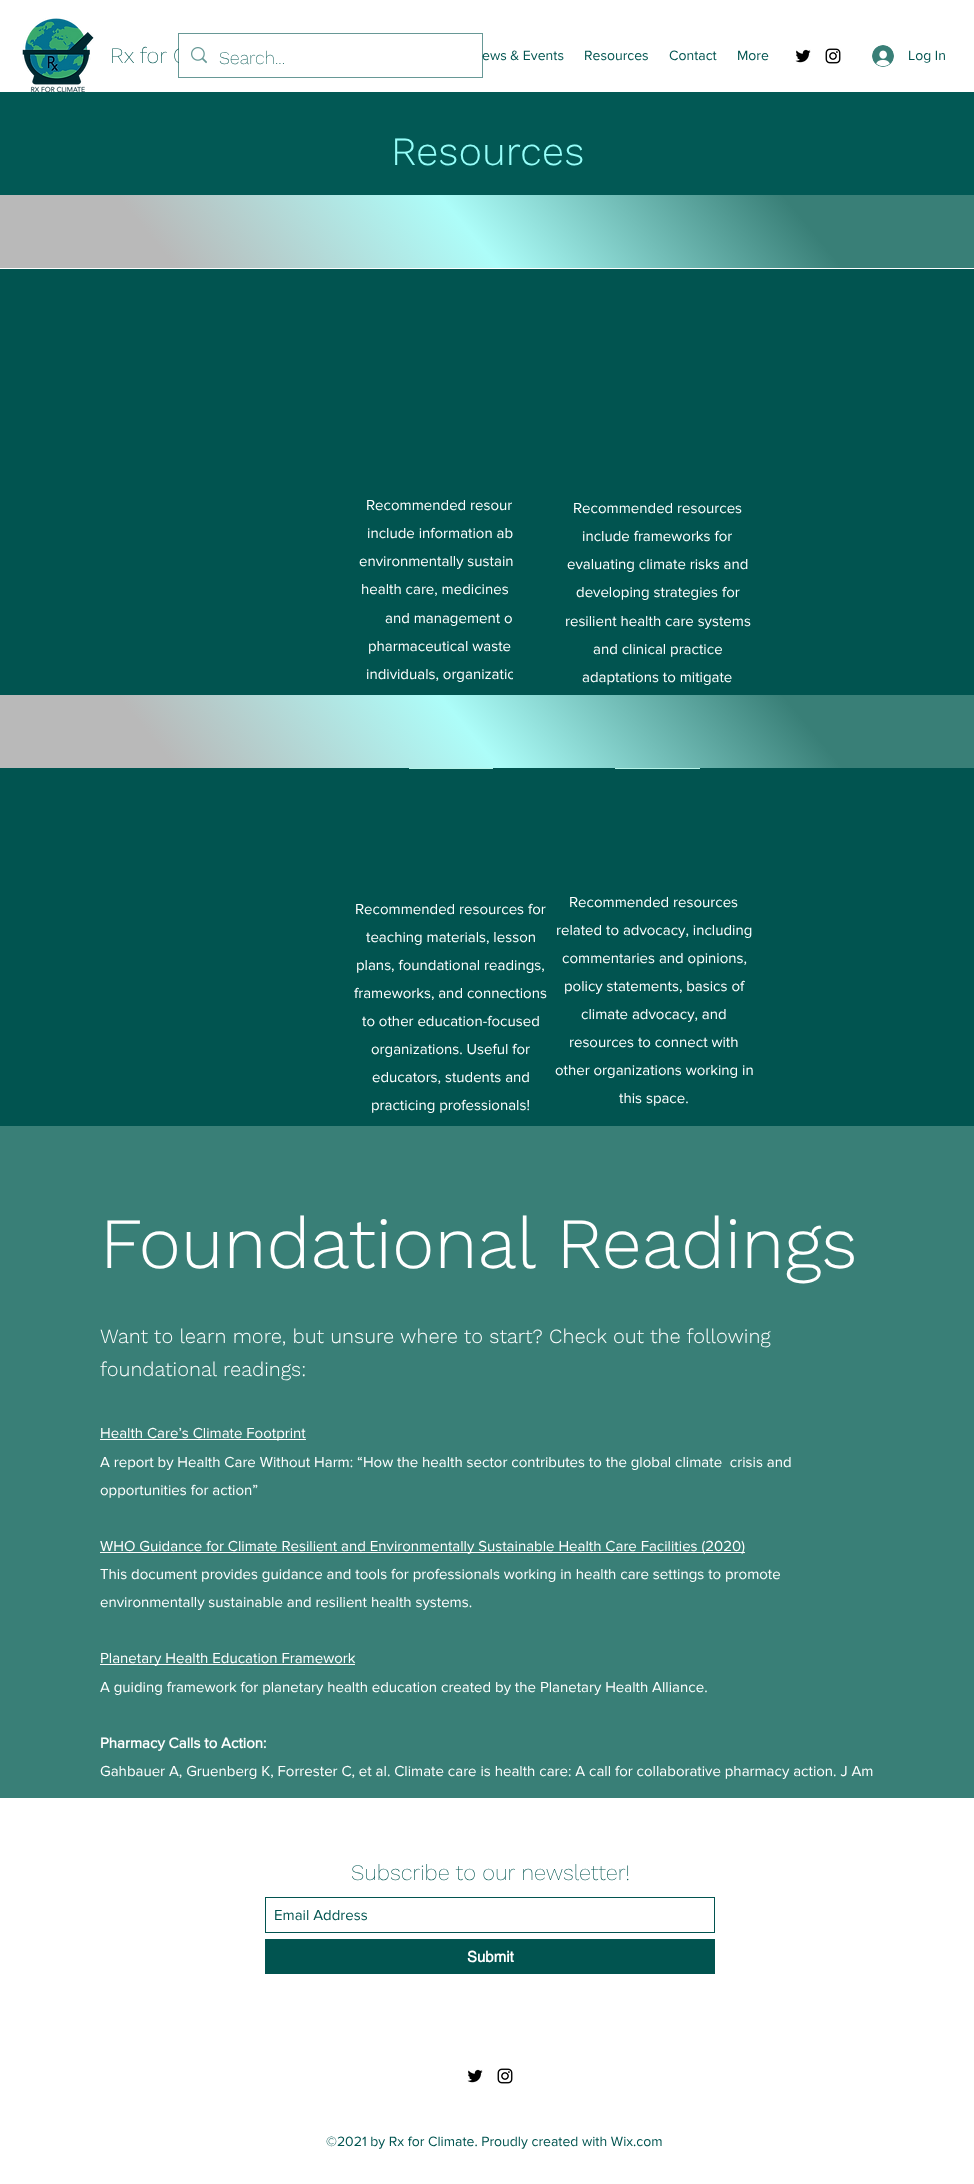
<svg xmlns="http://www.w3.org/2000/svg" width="974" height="2184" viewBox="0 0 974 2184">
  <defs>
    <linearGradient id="g1" gradientUnits="userSpaceOnUse" x1="180" y1="487" x2="800" y2="-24"><stop offset="0.17" stop-color="rgb(185,185,185)"/><stop offset="0.48" stop-color="rgb(173,253,249)"/><stop offset="0.81" stop-color="rgb(57,127,119)"/></linearGradient>
    <linearGradient id="g2" gradientUnits="userSpaceOnUse" x1="180" y1="987" x2="800" y2="476"><stop offset="0.17" stop-color="rgb(185,185,185)"/><stop offset="0.48" stop-color="rgb(173,253,249)"/><stop offset="0.81" stop-color="rgb(57,127,119)"/></linearGradient>
  </defs>
  <rect width="100%" height="100%" fill="rgb(255,255,255)"/>
  <rect x="0" y="92" width="974" height="103" fill="rgb(2,89,85)"/>
  <image x="22" y="18" width="72" height="75" href="pic1.png"/>
  <text x="110" y="63" font-family="Work Sans" font-size="22" font-weight="200" fill="rgb(1,84,80)">Rx for C</text>
  <g font-family="'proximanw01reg'" font-size="14" fill="rgb(1,84,80)">
    <text x="482" y="60">ews &amp; Events</text>
    <text x="584" y="60">Resources</text>
    <text x="669" y="60">Contact</text>
    <text x="737" y="60">More</text>
  </g>
  <image x="795" y="49" width="16" height="14" href="pic2.png"/>
  <image x="825" y="48" width="16" height="16" href="pic3.png"/>
  <image x="872" y="45" width="22" height="22" href="pic4.png"/>
  <text x="908" y="60" font-family="'proximanw01reg'" font-size="14" fill="rgb(1,84,80)">Log In</text>
  <rect x="178.5" y="33.5" width="304" height="44" fill="none" stroke="rgba(1,84,80,0.6)"/>
  <rect x="179" y="48" width="8" height="16" fill="rgb(255,255,255)"/>
  <image x="191" y="47" width="16" height="17" href="pic5.png"/>
  <text x="219" y="64" font-family="Work Sans" font-size="18" font-weight="200" fill="rgb(1,84,80)">Search...</text>
  <text x="391" y="165" font-family="Work Sans" font-size="40" font-weight="300" fill="rgb(150,254,249)">Resources</text>
  <rect x="0" y="195" width="974" height="73" fill="url(#g1)"/>
  <rect x="0" y="269" width="974" height="857" fill="rgb(1,84,80)"/>
  <g font-family="'proximanw01reg'" font-size="15" fill="rgb(255,255,255)">
    <text x="366" y="510">Recommended resour</text>
    <text x="367" y="538">include information ab</text>
    <text x="359" y="566">environmentally sustain</text>
    <text x="361" y="594">health care, medicines</text>
    <text x="385" y="623">and management o</text>
    <text x="368" y="651">pharmaceutical waste</text>
    <text x="366" y="679">individuals, organizatio</text>
  </g>
  <rect x="409" y="768" width="84" height="1" fill="rgb(182,243,232)"/>
  <rect x="513" y="671" width="3" height="8" fill="rgb(1,84,80)"/>
  <g font-family="'proximanw01reg'" font-size="15" fill="rgb(255,255,255)">
    <text x="573" y="513">Recommended resources</text>
    <text x="582" y="541">include frameworks for</text>
    <text x="567" y="569">evaluating climate risks and</text>
    <text x="576" y="597">developing strategies for</text>
    <text x="565" y="626">resilient health care systems</text>
    <text x="593" y="654">and clinical practice</text>
    <text x="582" y="682">adaptations to mitigate</text>
  </g>
  <rect x="615" y="768" width="85" height="1" fill="rgb(182,243,232)"/>
  <rect x="0" y="695" width="974" height="73" fill="url(#g2)"/>
  <g font-family="'proximanw01reg'" font-size="15" fill="rgb(255,255,255)">
    <text x="355" y="914">Recommended resources for</text>
    <text x="366" y="942">teaching materials, lesson</text>
    <text x="356" y="970">plans, foundational readings,</text>
    <text x="354" y="998">frameworks, and connections</text>
    <text x="362" y="1026">to other education-focused</text>
    <text x="371" y="1054">organizations. Useful for</text>
    <text x="372" y="1082">educators, students and</text>
    <text x="371" y="1110">practicing professionals!</text>
    <text x="569" y="907">Recommended resources</text>
    <text x="556" y="935">related to advocacy, including</text>
    <text x="562" y="963">commentaries and opinions,</text>
    <text x="564" y="991">policy statements, basics of</text>
    <text x="581" y="1019">climate advocacy, and</text>
    <text x="569" y="1047">resources to connect with</text>
    <text x="555" y="1075">other organizations working in</text>
    <text x="619" y="1103">this space.</text>
  </g>
  <rect x="0" y="1126" width="974" height="672" fill="rgb(57,127,119)"/>
  <text x="100" y="1268" font-family="Work Sans" font-size="72" font-weight="300" fill="rgb(255,255,255)">Foundational Readings</text>
  <g font-family="Work Sans" font-size="20" font-weight="300" fill="rgb(255,255,255)">
    <text>
      <tspan x="100" y="1343">Want to learn more, but unsure where to start? Check out the following</tspan>
      <tspan x="100" y="1376">foundational readings:</tspan>
    </text>
  </g>
  <rect x="100" y="1439" width="206" height="1" fill="rgb(255,255,255)"/>
  <g font-family="'proximanw01reg'" font-size="15" fill="rgb(255,255,255)">
    <text xml:space="preserve"><tspan x="100" y="1438">Health Care’s Climate Footprint</tspan><tspan x="100" y="1467">A report by Health Care Without Harm: “How the health sector contributes to the global climate  crisis and</tspan><tspan x="100" y="1495">opportunities for action”</tspan></text>
  </g>
  <rect x="100" y="1552" width="645" height="1" fill="rgb(255,255,255)"/>
  <g font-family="'proximanw01reg'" font-size="15" fill="rgb(255,255,255)">
    <text>
      <tspan x="100" y="1551">WHO Guidance for Climate Resilient and Environmentally Sustainable Health Care Facilities (2020)</tspan>
      <tspan x="100" y="1579">This document provides guidance and tools for professionals working in health care settings to promote</tspan>
      <tspan x="100" y="1607">environmentally sustainable and resilient health systems.</tspan>
    </text>
  </g>
  <rect x="100" y="1664" width="255" height="1" fill="rgb(255,255,255)"/>
  <g font-family="'proximanw01reg'" font-size="15" fill="rgb(255,255,255)">
    <text>
      <tspan x="100" y="1663">Planetary Health Education Framework</tspan>
      <tspan x="100" y="1692">A guiding framework for planetary health education created by the Planetary Health Alliance.</tspan>
    </text>
  </g>
  <text x="100" y="1748" font-family="'proximanw01reg'" font-size="15" font-weight="bold" fill="rgb(255,255,255)">Pharmacy Calls to Action:</text>
  <text x="100" y="1776" font-family="'proximanw01reg'" font-size="15" fill="rgb(255,255,255)">Gahbauer A, Gruenberg K, Forrester C, et al. Climate care is health care: A call for collaborative pharmacy action. J Am</text>
  <text x="351" y="1880" font-family="Work Sans" font-size="22" font-weight="200" fill="rgb(1,84,80)">Subscribe to our newsletter!</text>
  <rect x="265.5" y="1897.5" width="449" height="35" fill="none" stroke="rgb(1,84,80)"/>
  <text x="274" y="1920" font-family="'proximanw01reg'" font-size="15" fill="rgb(1,84,80)">Email Address</text>
  <rect x="265" y="1939" width="450" height="35" fill="rgb(1,84,80)"/>
  <text x="467" y="1962" font-family="helvetica" font-size="15" font-weight="bold" fill="rgb(255,255,255)">Submit</text>
  <image x="467" y="2069" width="16" height="14" href="pic2.png"/>
  <image x="497" y="2068" width="16" height="16" href="pic3.png"/>
  <text x="326" y="2146" font-family="'proximanw01reg'" font-size="14" fill="rgb(1,84,80)">©2021 by Rx for Climate. Proudly created with Wix.com</text>
</svg>
